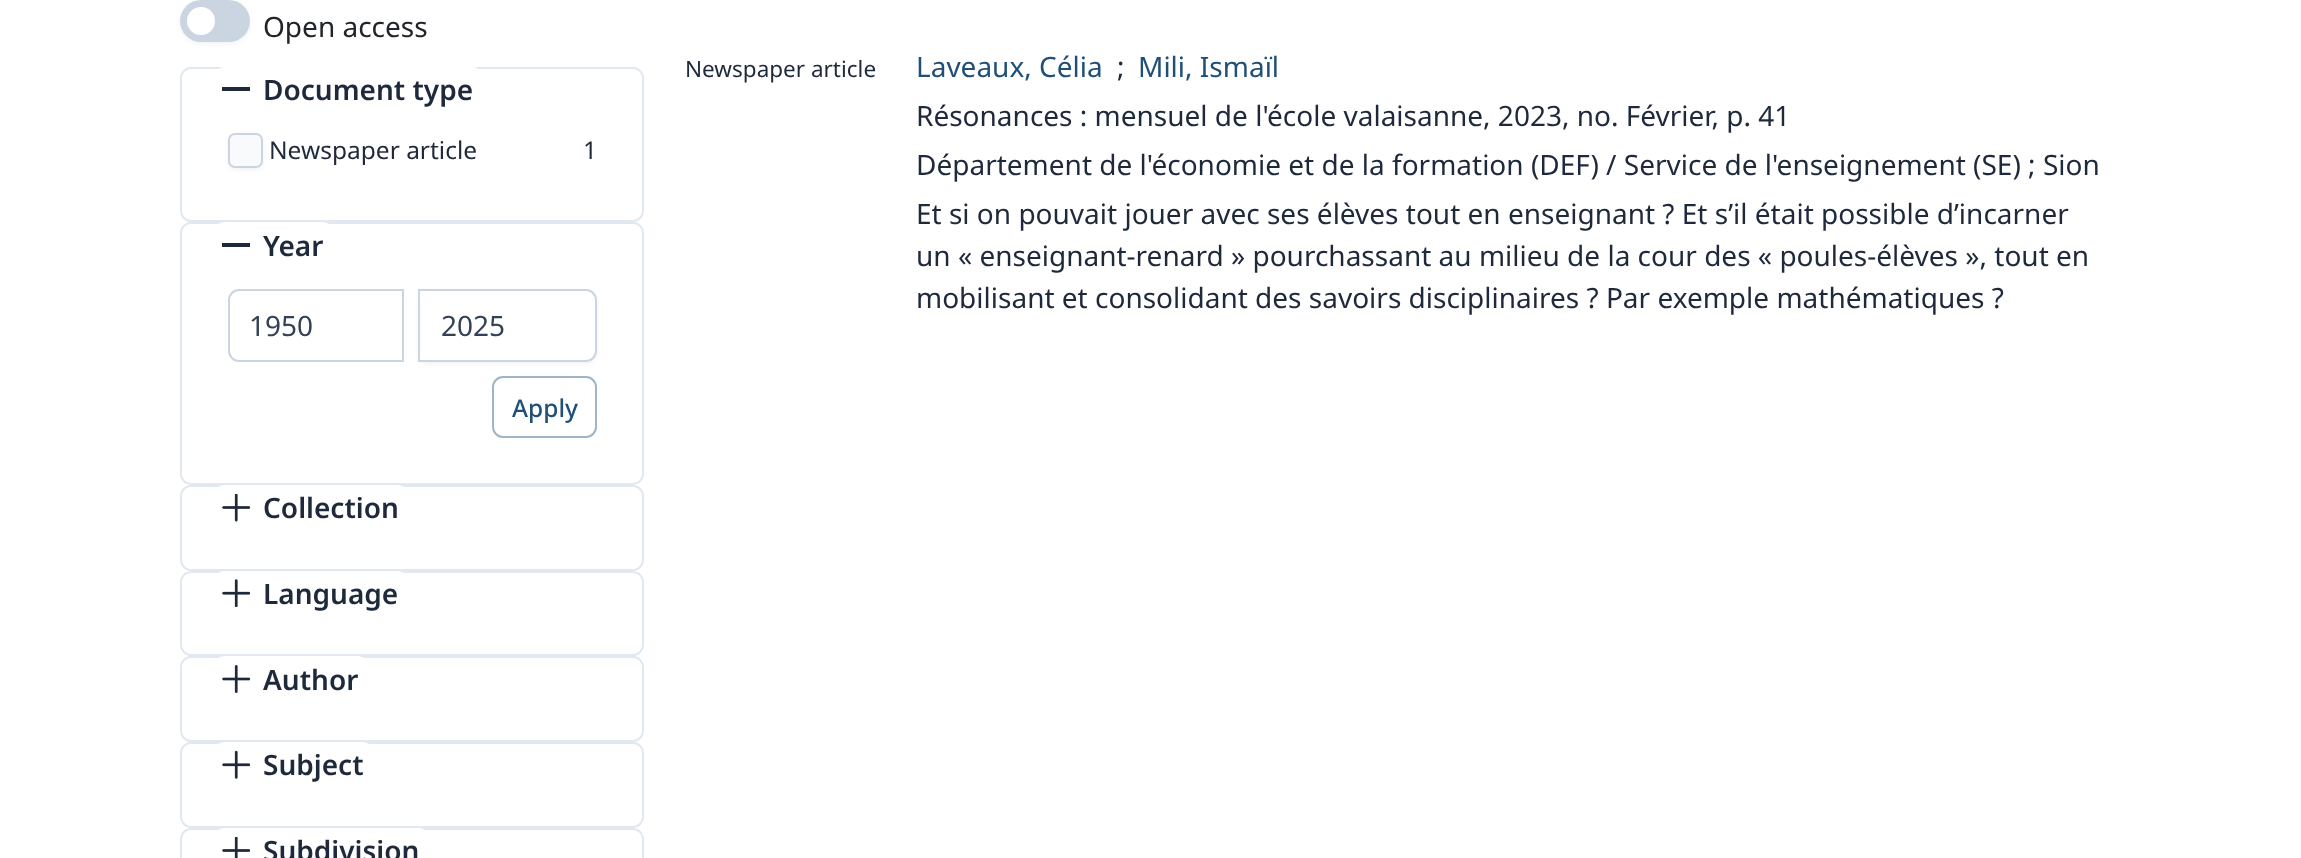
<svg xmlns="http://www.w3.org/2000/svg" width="2301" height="858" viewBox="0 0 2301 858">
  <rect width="100%" height="100%" fill="rgb(255,255,255)"/>
  <rect x="180" y="2" width="70" height="42" rx="21" fill="rgba(18,18,23,0.05)" filter="blur(2px)"/>
  <rect x="180" y="0" width="70" height="42" rx="21" fill="rgb(203,213,225)"/>
  <circle cx="201" cy="21" r="14" fill="rgb(255,255,255)"/>
  <text x="263" y="37" font-family="Noto Sans" font-size="28" fill="rgb(33,37,41)">Open access</text>
  <rect x="181" y="68" width="462" height="153" rx="10" fill="none" stroke="rgb(226,232,240)" stroke-width="2"/>
  <rect x="214" y="67" width="269" height="52" rx="11" fill="rgb(255,255,255)"/>
  <rect x="222" y="87" width="28" height="4" fill="rgb(30,41,59)"/>
  <text x="263" y="100" font-family="Noto Sans" font-size="28" font-weight="600" fill="rgb(30,41,59)">Document type</text>
  <rect x="228" y="135" width="35" height="35" rx="7" fill="rgba(18,18,23,0.05)" filter="blur(2px)"/>
  <rect x="229" y="134" width="33" height="33" rx="6" fill="rgb(248,250,252)" stroke="rgb(203,213,225)" stroke-width="2"/>
  <g font-family="Noto Sans" font-size="24.5" fill="rgb(30,41,59)">
    <text x="269" y="159">Newspaper article</text>
    <text x="583" y="159">1</text>
  </g>
  <rect x="181" y="223" width="462" height="261" rx="10" fill="none" stroke="rgb(226,232,240)" stroke-width="2"/>
  <rect x="214" y="222" width="119" height="53" rx="11" fill="rgb(255,255,255)"/>
  <rect x="222" y="243" width="28" height="4" fill="rgb(30,41,59)"/>
  <text x="263" y="256" font-family="Noto Sans" font-size="28" font-weight="600" fill="rgb(30,41,59)">Year</text>
  <path d="M239 290H403V361H239C233.5 361 229 356.5 229 351V300C229 294.5 233.5 290 239 290Z" fill="none" stroke="rgb(203,213,225)" stroke-width="2"/>
  <text x="249" y="336" font-family="Noto Sans" font-size="28" fill="rgb(51,65,85)">1950</text>
  <rect x="418" y="291" width="179" height="73" rx="11" fill="rgba(18,18,23,0.05)" filter="blur(2px)"/>
  <path d="M419 290H586C591.5 290 596 294.5 596 300V351C596 356.5 591.5 361 586 361H419Z" fill="rgb(255,255,255)" stroke="rgb(203,213,225)" stroke-width="2"/>
  <text x="441" y="336" font-family="Noto Sans" font-size="28" fill="rgb(51,65,85)">2025</text>
  <rect x="493" y="377" width="103" height="60" rx="10" fill="none" stroke="rgb(159,180,197)" stroke-width="2"/>
  <text x="512" y="417" font-family="Noto Sans" font-size="24.5" font-weight="500" fill="rgb(32,80,120)">Apply</text>
  <rect x="181" y="486" width="462" height="84" rx="10" fill="none" stroke="rgb(226,232,240)" stroke-width="2"/>
  <rect x="214" y="485" width="194" height="52" rx="11" fill="rgb(255,255,255)"/>
  <image x="222" y="494" width="28" height="28" href="pic1.png"/>
  <text x="263" y="518" font-family="Noto Sans" font-size="28" font-weight="600" fill="rgb(30,41,59)">Collection</text>
  <rect x="181" y="572" width="462" height="83" rx="10" fill="none" stroke="rgb(226,232,240)" stroke-width="2"/>
  <rect x="214" y="571" width="194" height="52" rx="11" fill="rgb(255,255,255)"/>
  <image x="222" y="579" width="28" height="28" href="pic2.png"/>
  <text x="263" y="604" font-family="Noto Sans" font-size="28" font-weight="600" fill="rgb(30,41,59)">Language</text>
  <rect x="181" y="657" width="462" height="84" rx="10" fill="none" stroke="rgb(226,232,240)" stroke-width="2"/>
  <rect x="214" y="656" width="154" height="53" rx="11" fill="rgb(255,255,255)"/>
  <image x="222" y="665" width="28" height="28" href="pic3.png"/>
  <text x="263" y="690" font-family="Noto Sans" font-size="28" font-weight="600" fill="rgb(30,41,59)">Author</text>
  <rect x="181" y="743" width="462" height="84" rx="10" fill="none" stroke="rgb(226,232,240)" stroke-width="2"/>
  <rect x="214" y="742" width="159" height="53" rx="11" fill="rgb(255,255,255)"/>
  <image x="222" y="751" width="28" height="28" href="pic4.png"/>
  <text x="263" y="775" font-family="Noto Sans" font-size="28" font-weight="600" fill="rgb(30,41,59)">Subject</text>
  <rect x="181" y="829" width="462" height="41" rx="10" fill="none" stroke="rgb(226,232,240)" stroke-width="2"/>
  <rect x="214" y="828" width="215" height="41" rx="11" fill="rgb(255,255,255)"/>
  <image x="222" y="837" width="28" height="21" href="pic5.png"/>
  <text x="263" y="861" font-family="Noto Sans" font-size="28" font-weight="600" fill="rgb(30,41,59)">Subdivision</text>
  <text x="685" y="77" font-family="Noto Sans" font-size="22.5" fill="rgb(30,41,59)">Newspaper article</text>
  <text x="916" y="77" font-family="Noto Sans" font-size="28" fill="rgb(32,80,120)">Laveaux, Célia</text>
  <text x="1117" y="77" font-family="Noto Sans" font-size="28" fill="rgb(30,41,59)">;</text>
  <text x="1138" y="77" font-family="Noto Sans" font-size="28" fill="rgb(32,80,120)">Mili, Ismaïl</text>
  <g font-family="Noto Sans" font-size="28" fill="rgb(30,41,59)">
    <text>
      <tspan x="916" y="126">Résonances : mensuel de l'école valaisanne, 2023, no. Février, p. 41</tspan>
      <tspan x="916" y="175">Département de l'économie et de la formation (DEF) / Service de l'enseignement (SE) ; Sion</tspan>
      <tspan x="916" y="224">Et si on pouvait jouer avec ses élèves tout en enseignant ? Et s’il était possible d’incarner</tspan>
      <tspan x="916" y="266">un « enseignant-renard » pourchassant au milieu de la cour des « poules-élèves », tout en</tspan>
      <tspan x="916" y="308">mobilisant et consolidant des savoirs disciplinaires ? Par exemple mathématiques ?</tspan>
    </text>
  </g>
</svg>
